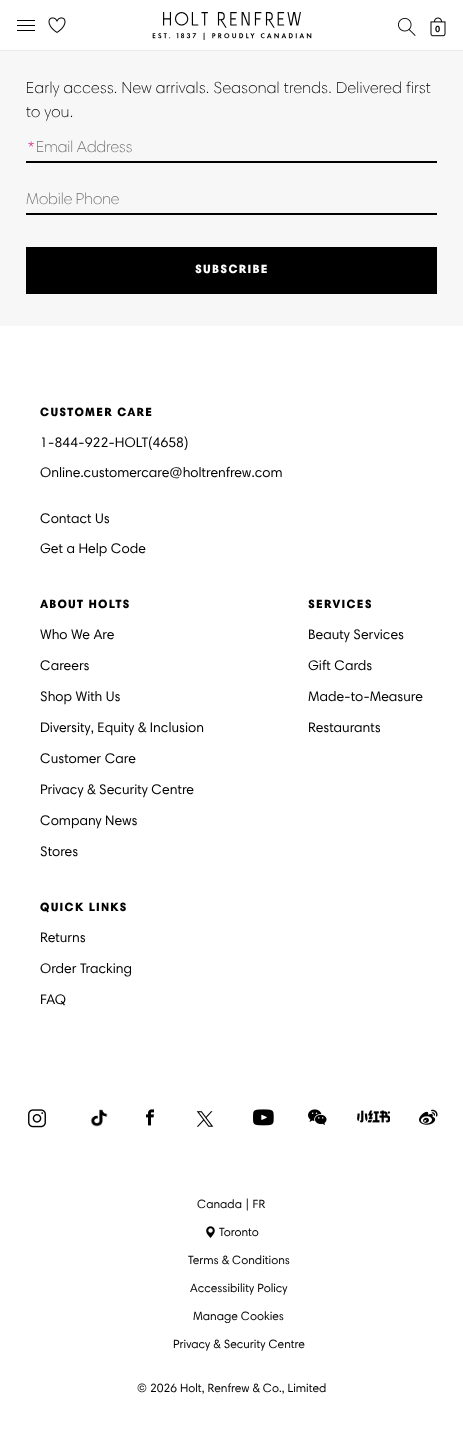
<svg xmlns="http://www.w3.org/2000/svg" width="463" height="1443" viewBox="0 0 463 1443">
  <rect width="100%" height="100%" fill="rgb(255,255,255)"/>
  <rect x="17" y="20" width="18" height="1" fill="rgb(0,0,0)"/>
  <rect x="17" y="25" width="18" height="1" fill="rgb(0,0,0)"/>
  <rect x="17" y="30" width="18" height="1" fill="rgb(0,0,0)"/>
  <image x="152" y="12" width="160" height="28" href="pic1.png"/>
  <image x="48" y="17" width="18" height="16" href="pic2.png"/>
  <image x="398" y="18" width="18" height="18" href="pic3.png"/>
  <image x="430" y="17" width="16" height="20" href="pic4.png"/>
  <text x="435" y="32" font-family="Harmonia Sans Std" font-size="9" font-weight="bold" fill="rgb(0,0,0)">0</text>
  <rect x="0" y="50" width="463" height="1" fill="rgb(234,233,231)"/>
  <rect x="0" y="51" width="463" height="275" fill="rgb(247,247,247)"/>
  <g font-family="Harmonia Sans Std" font-size="16" font-weight="300" letter-spacing="0.32" fill="rgb(0,0,0)">
    <text>
      <tspan x="26" y="93">Early access. New arrivals. Seasonal trends. Delivered first</tspan>
      <tspan x="26" y="117">to you.</tspan>
    </text>
  </g>
  <text x="28" y="153" font-family="Harmonia Sans Std" font-size="16" font-weight="300" fill="rgb(197,0,112)">*</text>
  <rect x="26" y="161" width="411" height="2" fill="rgb(0,0,0)"/>
  <text x="36" y="152" font-family="Harmonia Sans Std" font-size="16" font-weight="300" fill="rgb(113,113,113)">Email Address</text>
  <rect x="26" y="213" width="411" height="2" fill="rgb(0,0,0)"/>
  <text x="26" y="204" font-family="Harmonia Sans Std" font-size="16" font-weight="300" fill="rgb(113,113,113)">Mobile Phone</text>
  <rect x="26" y="247" width="411" height="47" fill="rgb(0,0,0)"/>
  <text x="195" y="273" font-family="Harmonia Sans Std" font-size="12" font-weight="900" letter-spacing="1.25" fill="rgb(255,255,255)">SUBSCRIBE</text>
  <text x="40" y="416" font-family="Harmonia Sans Std" font-size="12" font-weight="900" letter-spacing="1.25" fill="rgb(0,0,0)">CUSTOMER CARE</text>
  <g font-family="Harmonia Sans Std" font-size="14" fill="rgb(0,0,0)">
    <text x="40" y="447">1-844-922-HOLT(4658)</text>
    <text x="40" y="477">Online.customercare@holtrenfrew.com</text>
    <text x="40" y="523">Contact Us</text>
    <text x="40" y="553">Get a Help Code</text>
  </g>
  <text x="40" y="608" font-family="Harmonia Sans Std" font-size="12" font-weight="900" letter-spacing="1.25" fill="rgb(0,0,0)">ABOUT HOLTS</text>
  <g font-family="Harmonia Sans Std" font-size="14" fill="rgb(0,0,0)">
    <text x="40" y="639">Who We Are</text>
    <text x="40" y="670">Careers</text>
    <text x="40" y="701">Shop With Us</text>
    <text x="40" y="732">Diversity, Equity &amp; Inclusion</text>
    <text x="40" y="763">Customer Care</text>
    <text x="40" y="794">Privacy &amp; Security Centre</text>
    <text x="40" y="825">Company News</text>
    <text x="40" y="856">Stores</text>
  </g>
  <text x="308" y="608" font-family="Harmonia Sans Std" font-size="12" font-weight="900" letter-spacing="1.25" fill="rgb(0,0,0)">SERVICES</text>
  <g font-family="Harmonia Sans Std" font-size="14" fill="rgb(0,0,0)">
    <text x="308" y="639">Beauty Services</text>
    <text x="308" y="670">Gift Cards</text>
    <text x="308" y="701">Made-to-Measure</text>
    <text x="308" y="732">Restaurants</text>
  </g>
  <text x="40" y="911" font-family="Harmonia Sans Std" font-size="12" font-weight="900" letter-spacing="1.25" fill="rgb(0,0,0)">QUICK LINKS</text>
  <g font-family="Harmonia Sans Std" font-size="14" fill="rgb(0,0,0)">
    <text x="40" y="942">Returns</text>
    <text x="40" y="973">Order Tracking</text>
    <text x="40" y="1004">FAQ</text>
  </g>
  <image x="28" y="1109" width="18" height="19" href="pic5.png"/>
  <image x="90" y="1109" width="18" height="18" href="pic6.png"/>
  <image x="146" y="1109" width="8" height="17" href="pic7.png"/>
  <image x="196" y="1111" width="18" height="16" href="pic8.png"/>
  <image x="253" y="1109" width="21" height="17" href="pic9.png"/>
  <image x="308" y="1109" width="19" height="16" href="pic10.png"/>
  <image x="357" y="1110" width="33" height="13" href="pic11.png"/>
  <image x="419" y="1109" width="19" height="16" href="pic12.png"/>
  <text x="197" y="1208" font-family="Harmonia Sans Std" font-size="12" fill="rgb(0,0,0)">Canada | FR</text>
  <image x="206" y="1226" width="9" height="12" href="pic13.png"/>
  <g font-family="Harmonia Sans Std" font-size="12" fill="rgb(0,0,0)">
    <text x="219" y="1236">Toronto</text>
    <text x="188" y="1264">Terms &amp; Conditions</text>
    <text x="190" y="1292">Accessibility Policy</text>
    <text x="193" y="1320">Manage Cookies</text>
    <text x="173" y="1348">Privacy &amp; Security Centre</text>
    <text x="137" y="1392">© 2026 Holt, Renfrew &amp; Co., Limited</text>
  </g>
</svg>
